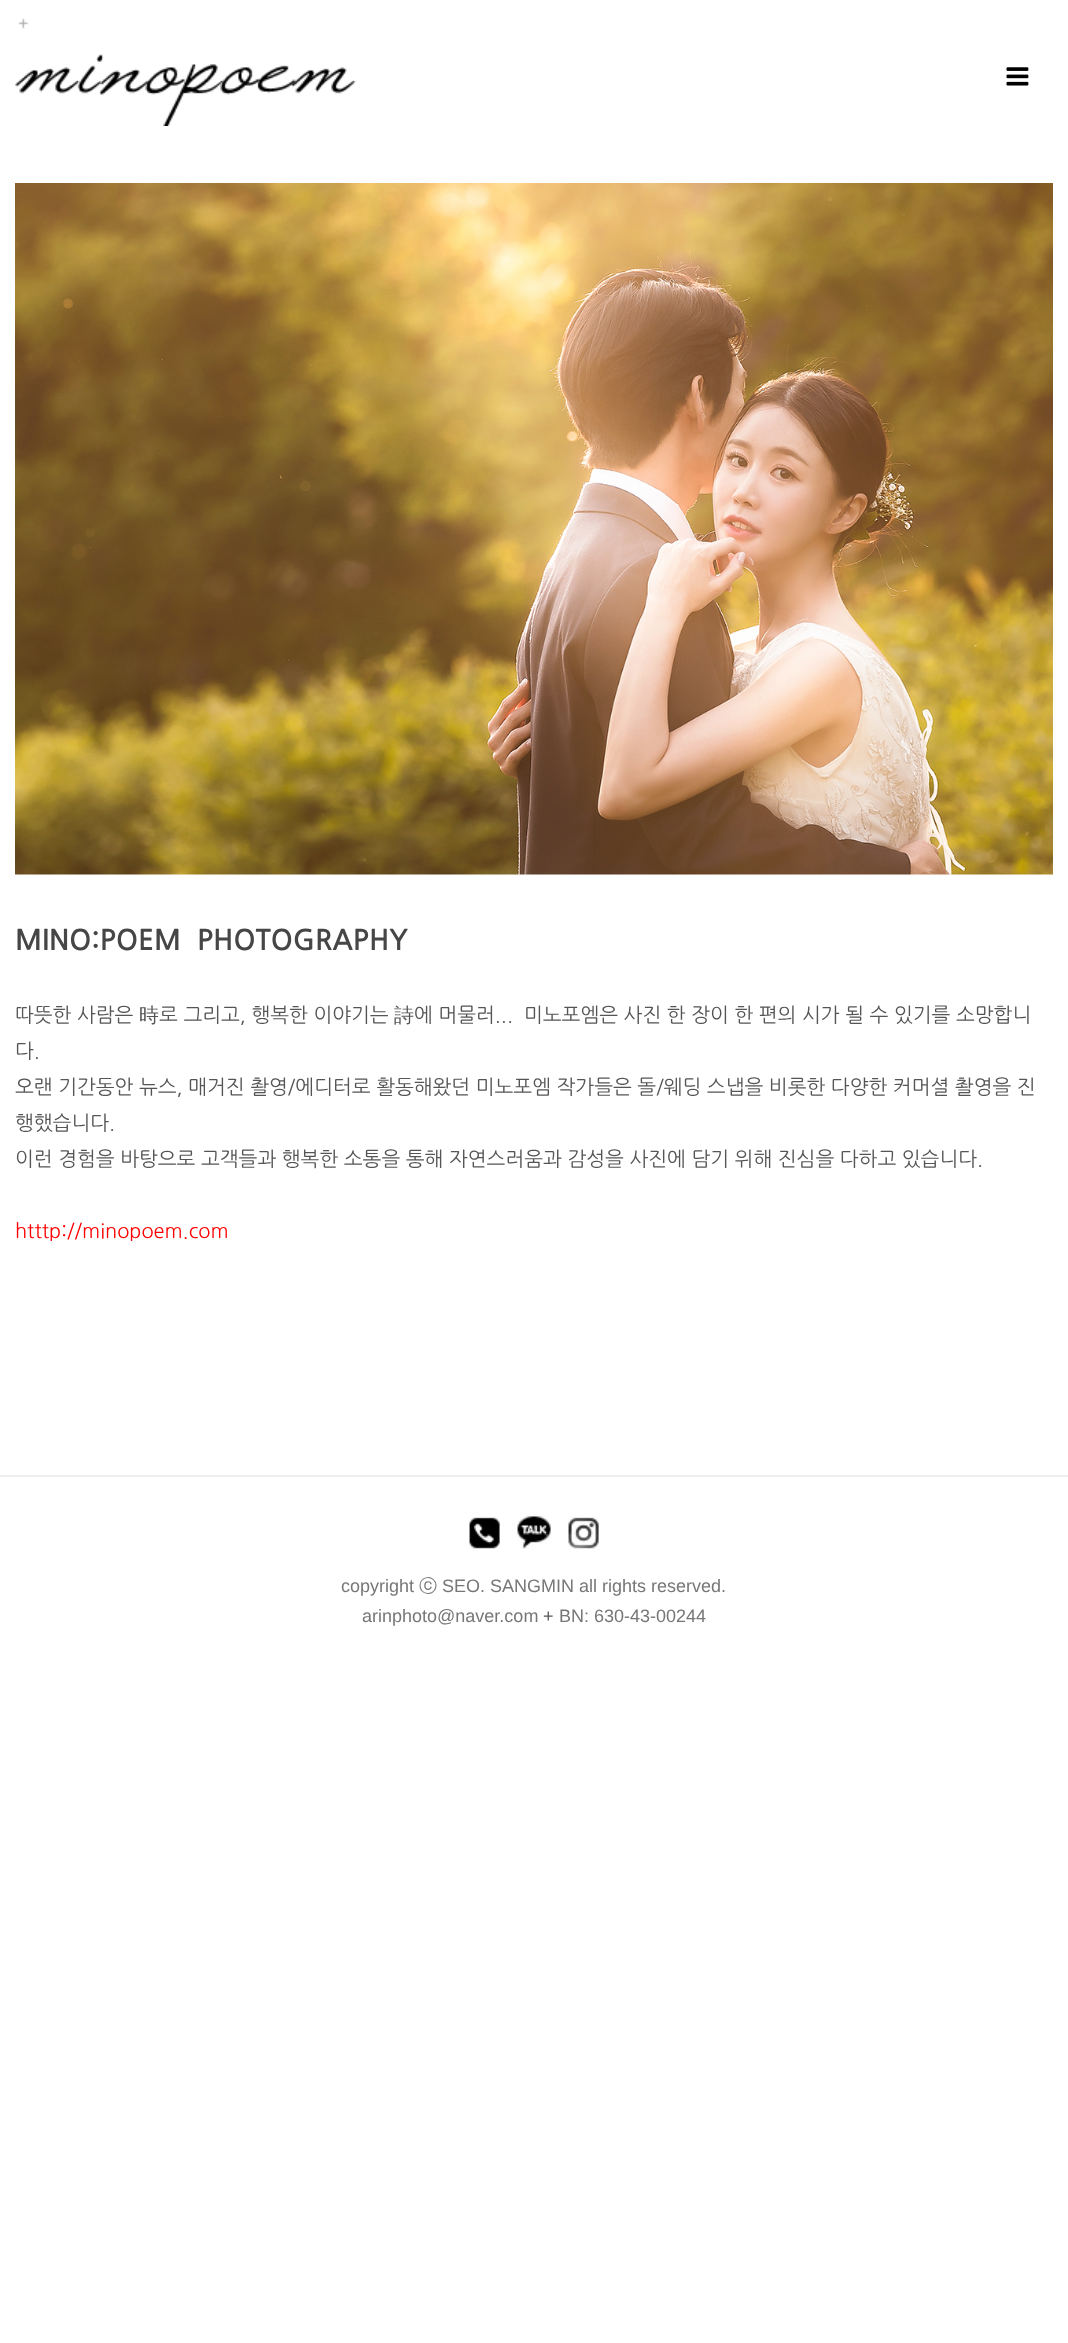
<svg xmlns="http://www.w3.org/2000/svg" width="1068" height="2343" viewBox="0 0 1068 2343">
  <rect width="100%" height="100%" fill="rgb(255,255,255)"/>
  <image x="18" y="18" width="11" height="11" href="pic1.png"/>
  <image x="15" y="54" width="341" height="72" href="pic2.png"/>
  <image x="1006" y="67" width="23" height="19" href="pic3.png"/>
  <image x="15" y="183" width="1038" height="692" href="pic4.png"/>
  <text x="15" y="950" font-family="NanumGothic" font-size="28" font-weight="bold" fill="rgb(70,70,70)" xml:space="preserve">MINO:POEM  PHOTOGRAPHY</text>
  <text x="15" y="1022" font-family="NanumGothic" font-size="20" fill="rgb(85,85,85)">따뜻한 사람은</text>
  <text x="139" y="1022" font-family="WenQuanYi Zen Hei" font-size="20" font-weight="500" fill="rgb(85,85,85)">時</text>
  <text x="159" y="1022" font-family="NanumGothic" font-size="20" fill="rgb(85,85,85)">로 그리고, 행복한 이야기는</text>
  <text x="394" y="1022" font-family="WenQuanYi Zen Hei" font-size="20" font-weight="500" fill="rgb(85,85,85)">詩</text>
  <g font-family="NanumGothic" font-size="20" fill="rgb(85,85,85)">
    <text x="414" y="1022">에 머물러...</text>
    <text x="524" y="1022">미노포엠은 사진 한 장이 한 편의 시가 될 수 있기를 소망합니</text>
    <text>
      <tspan x="15" y="1058">다.</tspan>
      <tspan x="15" y="1094">오랜 기간동안 뉴스, 매거진 촬영/에디터로 활동해왔던 미노포엠 작가들은 돌/웨딩 스냅을 비롯한 다양한 커머셜 촬영을 진</tspan>
      <tspan x="15" y="1130">행했습니다.</tspan>
      <tspan x="15" y="1166">이런 경험을 바탕으로 고객들과 행복한 소통을 통해 자연스러움과 감성을 사진에 담기 위해 진심을 다하고 있습니다.</tspan>
    </text>
  </g>
  <text x="15" y="1238" font-family="NanumGothic" font-size="20" fill="rgb(255,0,0)">htttp://minopoem.com</text>
  <rect x="0" y="1475" width="1068" height="2" fill="rgb(238,238,238)"/>
  <image x="469" y="1517" width="31" height="32" href="pic5.png"/>
  <image x="517" y="1514" width="34" height="35" href="pic6.png"/>
  <image x="568" y="1517" width="31" height="32" href="pic7.png"/>
  <text x="341" y="1592" font-family="Liberation Sans" font-size="18" fill="rgb(119,119,119)">copyright</text>
  <text x="419" y="1592" font-family="WenQuanYi Zen Hei" font-size="18" font-weight="500" fill="rgb(119,119,119)">ⓒ</text>
  <g font-family="Liberation Sans" font-size="18" fill="rgb(119,119,119)">
    <text x="442" y="1592">SEO. SANGMIN all rights reserved.</text>
    <text x="362" y="1622">arinphoto@naver.com</text>
  </g>
  <text x="543" y="1622" font-family="Liberation Sans" font-size="18" fill="rgb(85,85,85)">+</text>
  <text x="559" y="1622" font-family="Liberation Sans" font-size="18" fill="rgb(119,119,119)">BN: 630-43-00244</text>
</svg>
